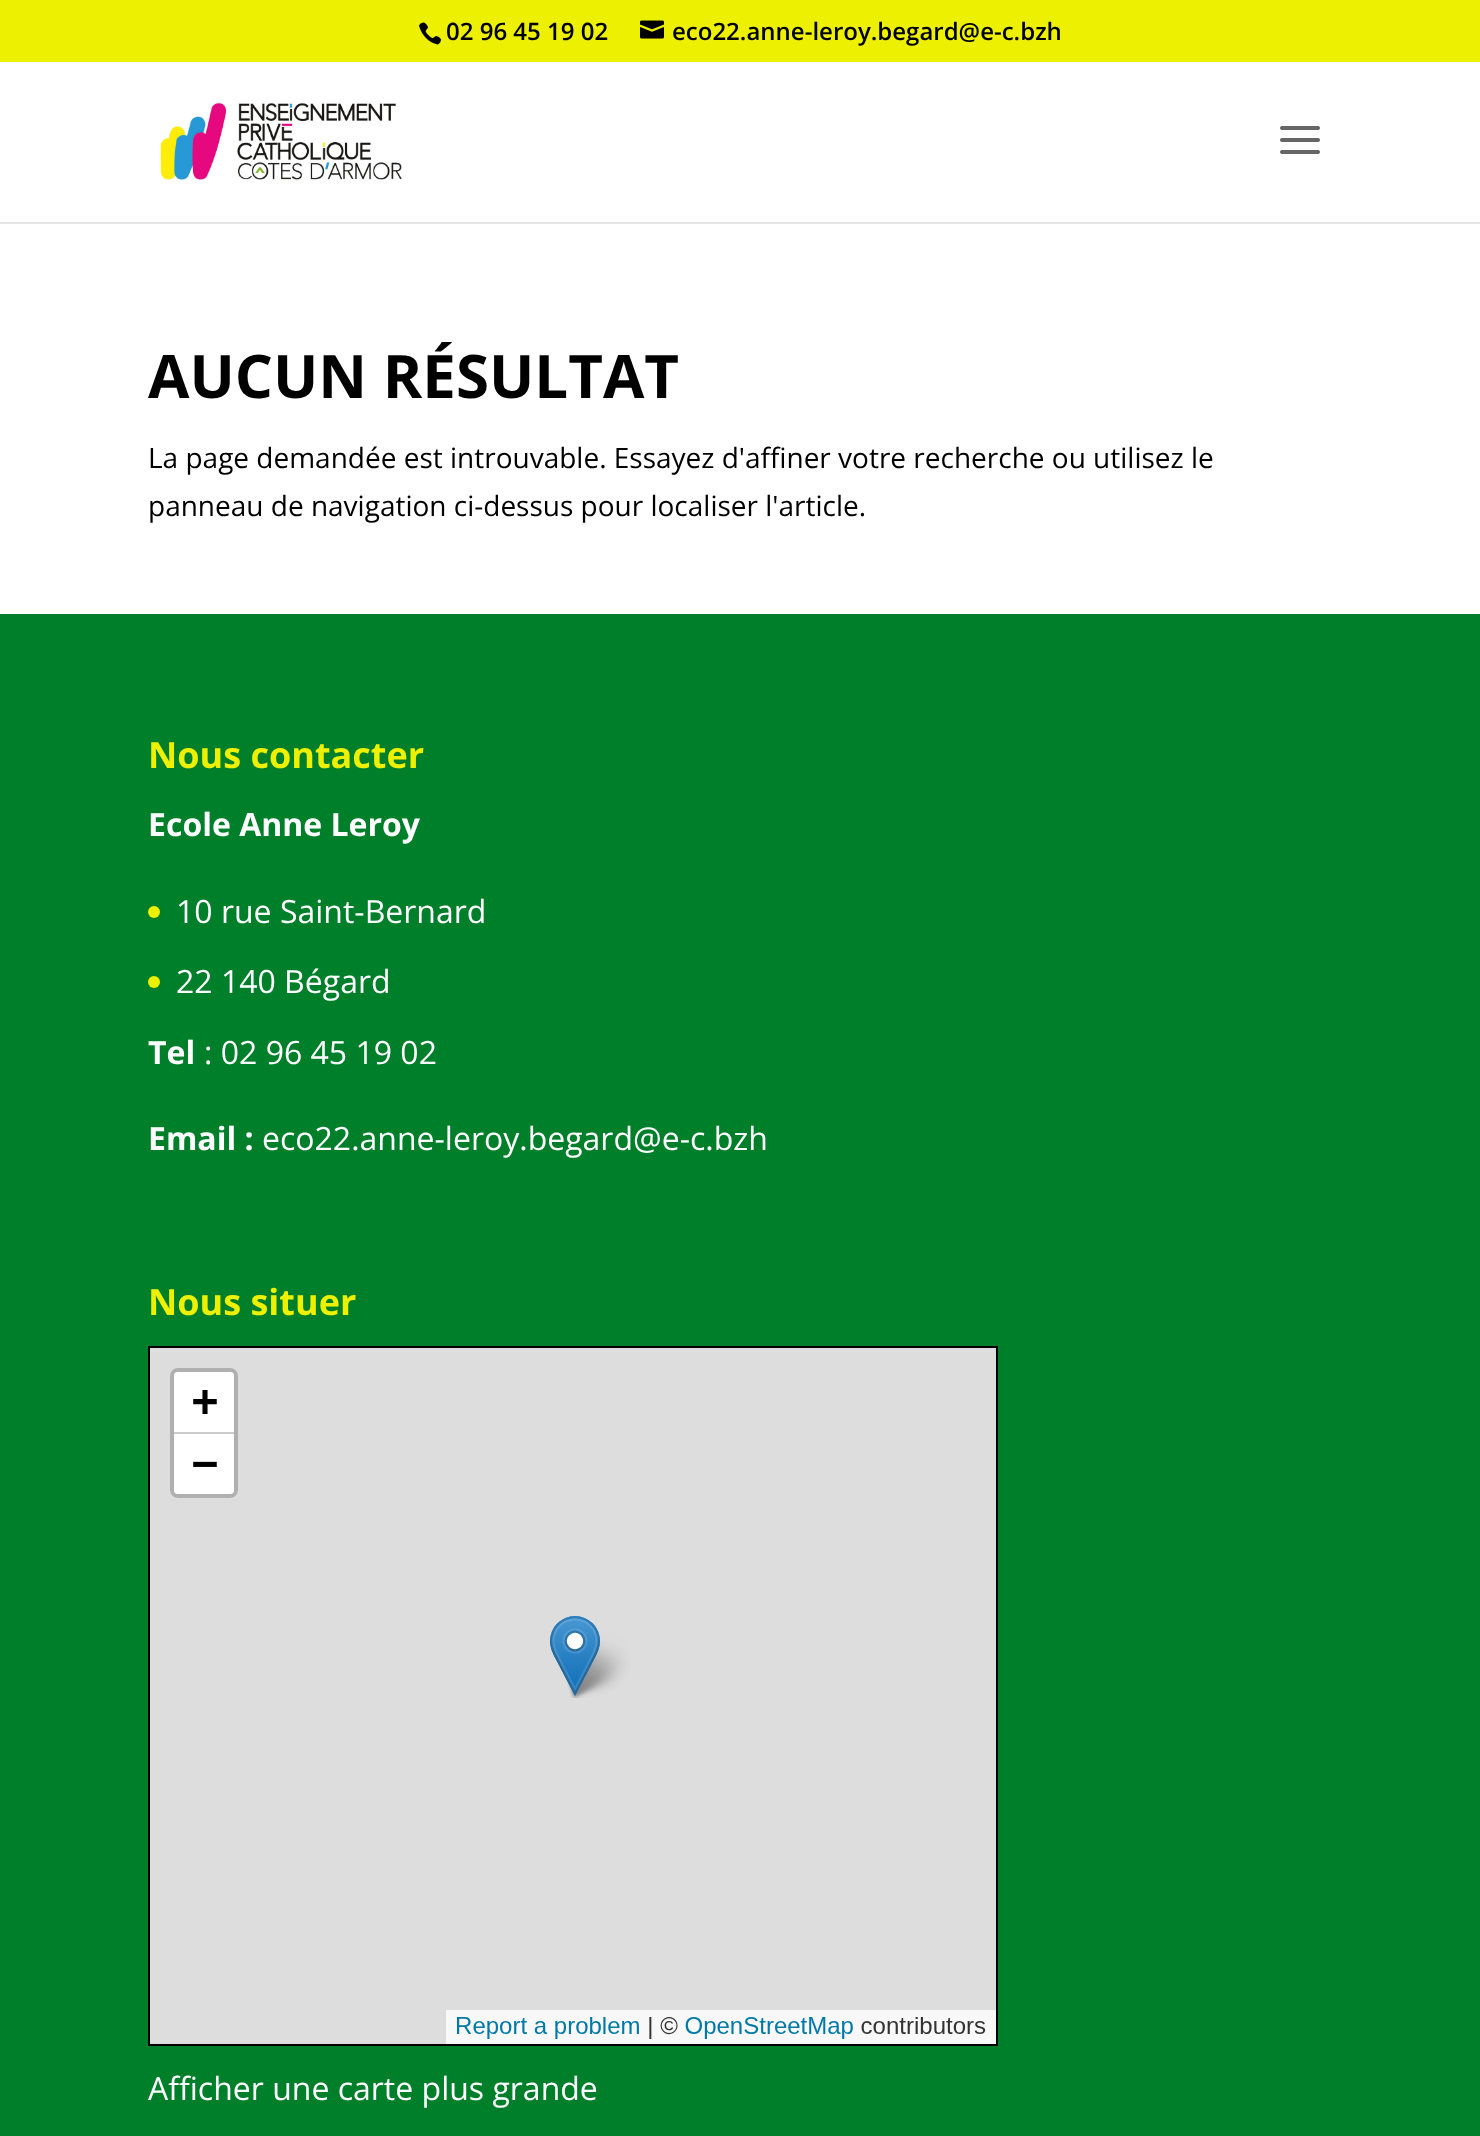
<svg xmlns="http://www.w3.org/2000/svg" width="1480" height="2136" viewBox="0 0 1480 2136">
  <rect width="100%" height="100%" fill="rgb(255,255,255)"/>
  <rect x="0" y="0" width="1480" height="62" fill="rgb(237,240,0)"/>
  <image x="419" y="22" width="22" height="23" href="pic1.png"/>
  <text x="446" y="40" font-family="Open Sans" font-size="24" font-weight="600" fill="rgb(0,0,0)">02 96 45 19 02</text>
  <image x="640" y="20" width="24" height="19" href="pic2.png"/>
  <text x="672" y="40" font-family="Open Sans" font-size="24" font-weight="600" fill="rgb(0,0,0)">eco22.anne-leroy.begard@e-c.bzh</text>
  <rect x="0" y="222" width="1480" height="2" fill="rgb(230,230,230)"/>
  <image x="159" y="102" width="243" height="80" href="pic3.png"/>
  <image x="1280" y="126" width="40" height="28" href="pic4.png"/>
  <text x="148" y="398" font-family="Open Sans" font-size="60" font-weight="bold" fill="rgb(0,0,0)">AUCUN RÉSULTAT</text>
  <g font-family="Open Sans" font-size="28" fill="rgb(0,0,0)">
    <text>
      <tspan x="148" y="468">La page demandée est introuvable. Essayez d'affiner votre recherche ou utilisez le</tspan>
      <tspan x="148" y="516">panneau de navigation ci-dessus pour localiser l'article.</tspan>
    </text>
  </g>
  <rect x="0" y="614" width="1480" height="1522" fill="rgb(0,127,42)"/>
  <text x="148" y="768" font-family="Open Sans" font-size="36" font-weight="bold" fill="rgb(237,240,0)">Nous contacter</text>
  <text x="148" y="836" font-family="Open Sans" font-size="32" font-weight="bold" fill="rgb(255,255,255)">Ecole Anne Leroy</text>
  <circle cx="154" cy="912" r="6" fill="rgb(237,240,0)"/>
  <text x="176" y="923" font-family="Open Sans" font-size="32" fill="rgb(255,255,255)">10 rue Saint-Bernard</text>
  <circle cx="154" cy="982" r="6" fill="rgb(237,240,0)"/>
  <text x="176" y="993" font-family="Open Sans" font-size="32" fill="rgb(255,255,255)">22 140 Bégard</text>
  <text x="148" y="1064" font-family="Open Sans" font-size="32" font-weight="bold" fill="rgb(255,255,255)">Tel</text>
  <text x="204" y="1064" font-family="Open Sans" font-size="32" fill="rgb(255,255,255)">: 02 96 45 19 02</text>
  <text x="148" y="1150" font-family="Open Sans" font-size="32" font-weight="bold" fill="rgb(255,255,255)">Email :</text>
  <text x="262" y="1150" font-family="Open Sans" font-size="32" fill="rgb(255,255,255)">eco22.anne-leroy.begard@e-c.bzh</text>
  <text x="148" y="1315" font-family="Open Sans" font-size="36" font-weight="bold" fill="rgb(237,240,0)">Nous situer</text>
  <rect x="149" y="1347" width="848" height="698" fill="none" stroke="rgb(0,0,0)" stroke-width="2"/>
  <image x="150" y="1348" width="846" height="696" href="pic5.png"/>
  <text x="148" y="2100" font-family="Open Sans" font-size="32" fill="rgb(255,255,255)">Afficher une carte plus grande</text>
</svg>
